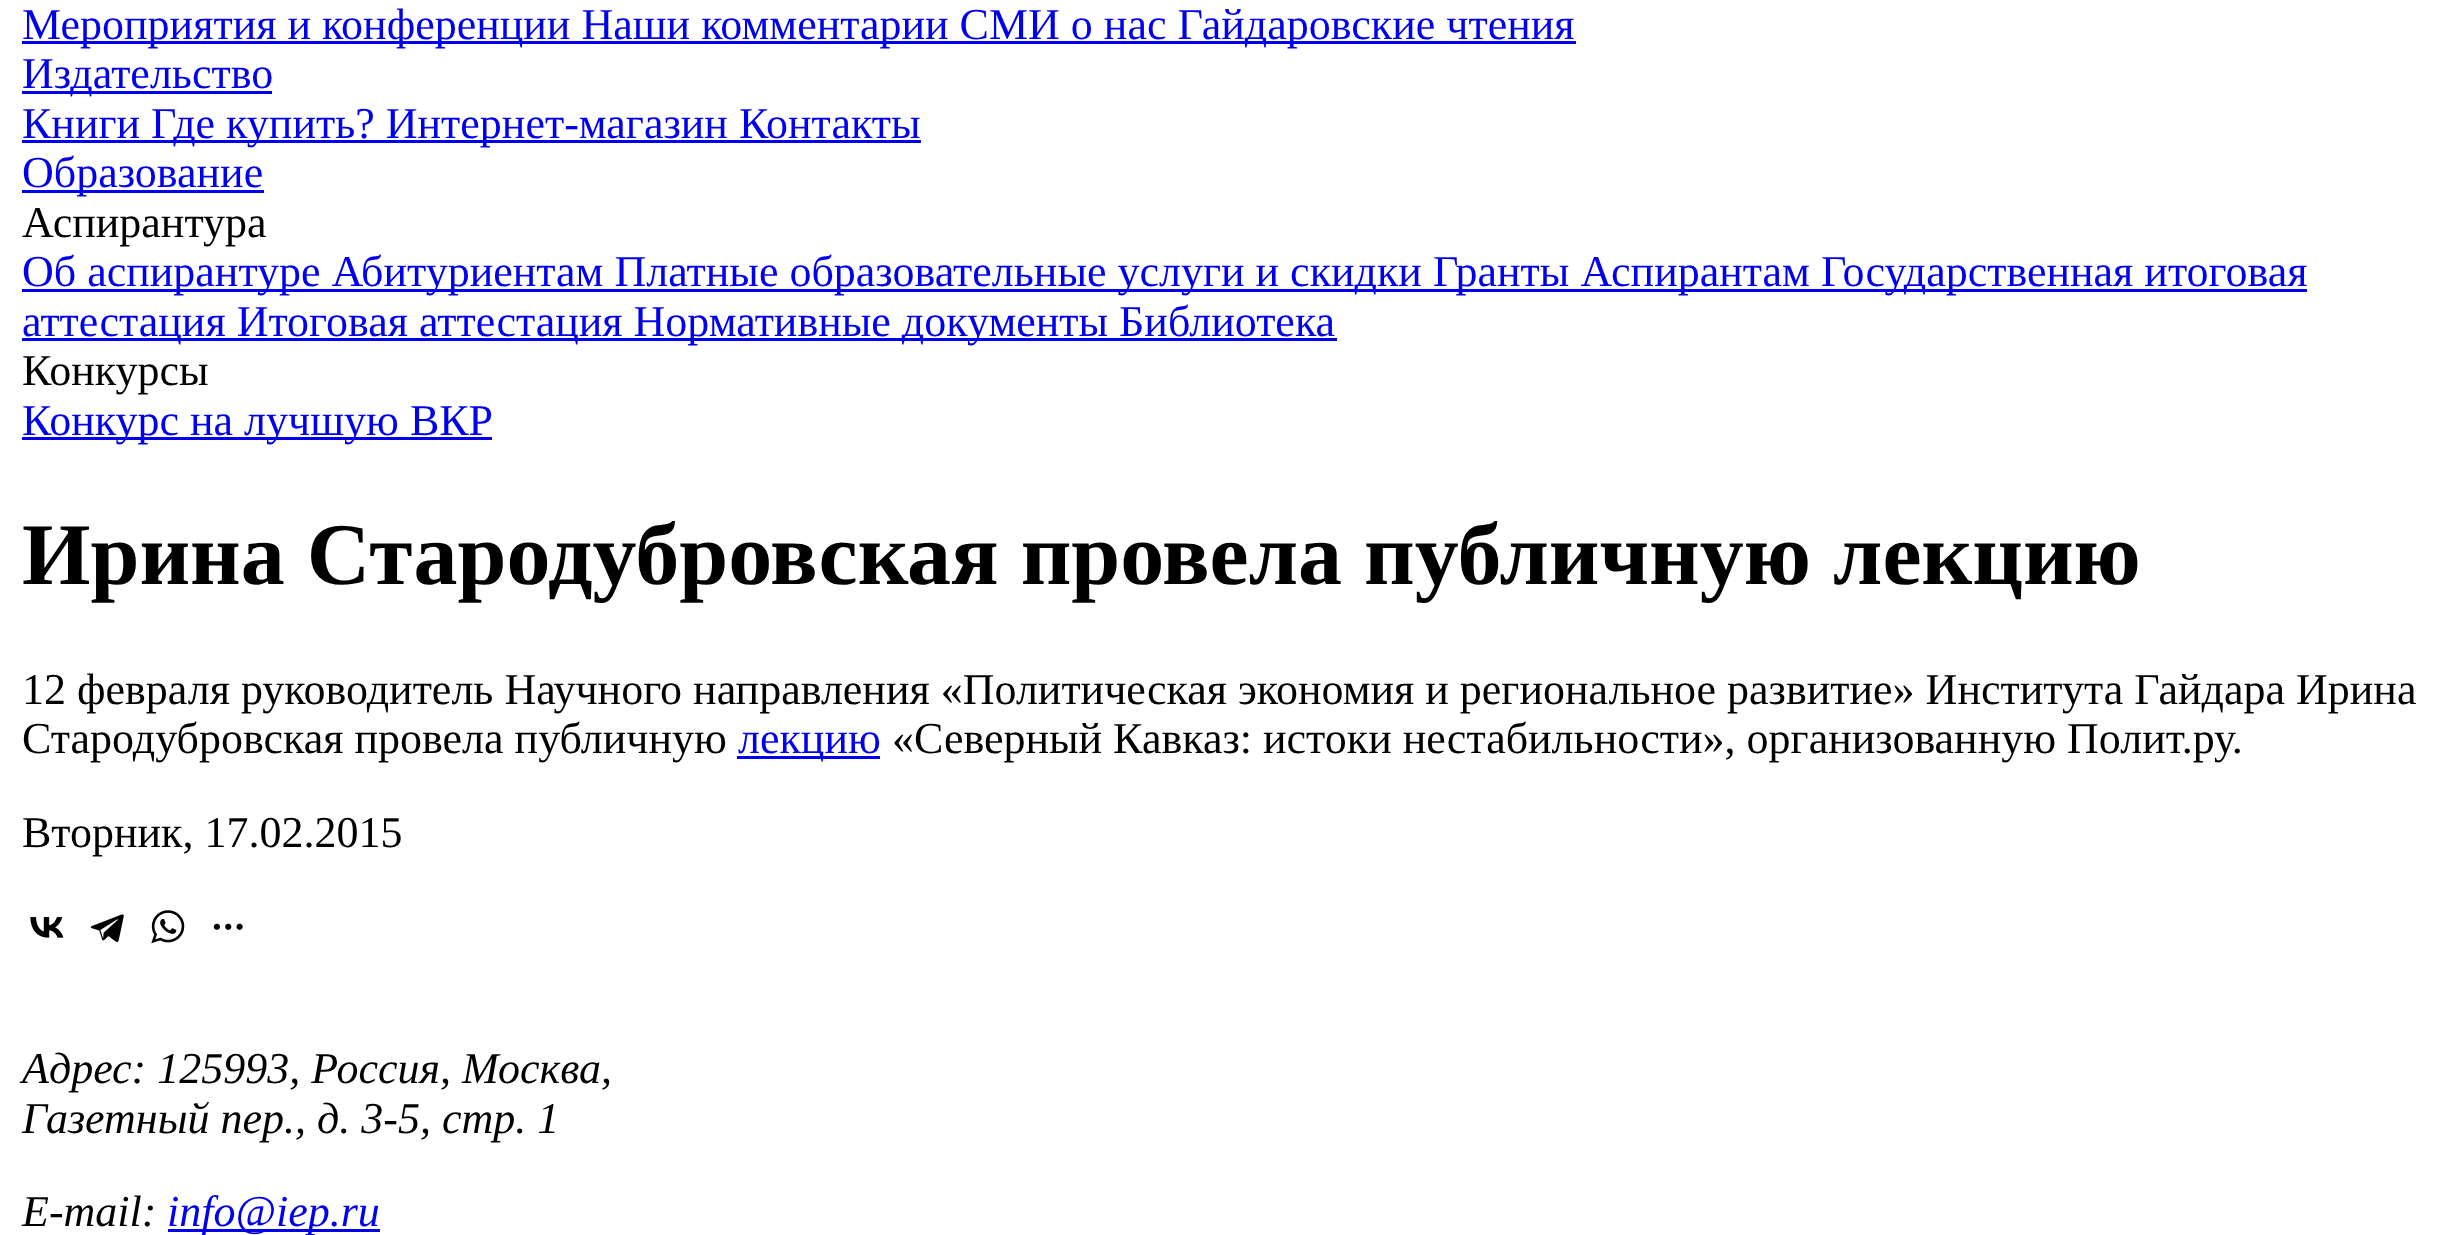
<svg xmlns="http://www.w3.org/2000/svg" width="2441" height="1235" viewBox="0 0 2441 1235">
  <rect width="100%" height="100%" fill="rgb(255,255,255)"/>
  <rect x="22" y="41" width="1554" height="3" fill="rgb(0,0,238)"/>
  <text x="22" y="39" font-family="Liberation Serif" font-size="44" fill="rgb(0,0,238)">Мероприятия и конференции Наши комментарии СМИ о нас Гайдаровские чтения</text>
  <rect x="22" y="91" width="250" height="3" fill="rgb(0,0,238)"/>
  <text x="22" y="88" font-family="Liberation Serif" font-size="44" fill="rgb(0,0,238)">Издательство</text>
  <rect x="22" y="140" width="899" height="3" fill="rgb(0,0,238)"/>
  <text x="22" y="138" font-family="Liberation Serif" font-size="44" fill="rgb(0,0,238)">Книги Где купить? Интернет-магазин Контакты</text>
  <rect x="22" y="190" width="242" height="3" fill="rgb(0,0,238)"/>
  <text x="22" y="187" font-family="Liberation Serif" font-size="44" fill="rgb(0,0,238)">Образование</text>
  <text x="22" y="237" font-family="Liberation Serif" font-size="44" fill="rgb(0,0,0)">Аспирантура</text>
  <rect x="22" y="289" width="2285" height="3" fill="rgb(0,0,238)"/>
  <text x="22" y="286" font-family="Liberation Serif" font-size="44" fill="rgb(0,0,238)">Об аспирантуре Абитуриентам Платные образовательные услуги и скидки Гранты Аспирантам Государственная итоговая</text>
  <rect x="22" y="338" width="1315" height="3" fill="rgb(0,0,238)"/>
  <text x="22" y="336" font-family="Liberation Serif" font-size="44" fill="rgb(0,0,238)">аттестация Итоговая аттестация Нормативные документы Библиотека</text>
  <text x="22" y="385" font-family="Liberation Serif" font-size="44" fill="rgb(0,0,0)">Конкурсы</text>
  <rect x="22" y="437" width="470" height="3" fill="rgb(0,0,238)"/>
  <text x="22" y="435" font-family="Liberation Serif" font-size="44" fill="rgb(0,0,238)">Конкурс на лучшую ВКР</text>
  <text x="22" y="584" font-family="Liberation Serif" font-size="88" font-weight="bold" fill="rgb(0,0,0)">Ирина Стародубровская провела публичную лекцию</text>
  <g font-family="Liberation Serif" font-size="44" fill="rgb(0,0,0)">
    <text>
      <tspan x="22" y="704">12 февраля руководитель Научного направления «Политическая экономия и региональное развитие» Института Гайдара Ирина</tspan>
      <tspan x="22" y="753">Стародубровская провела публичную</tspan>
    </text>
  </g>
  <rect x="737" y="756" width="143" height="3" fill="rgb(0,0,238)"/>
  <text x="738" y="753" font-family="Liberation Serif" font-size="44" fill="rgb(0,0,238)">лекцию</text>
  <g font-family="Liberation Serif" font-size="44" fill="rgb(0,0,0)">
    <text x="892" y="753">«Северный Кавказ: истоки нестабильности», организованную Полит.ру.</text>
    <text x="22" y="847">Вторник, 17.02.2015</text>
  </g>
  <image x="30" y="917" width="34" height="21" href="pic1.png"/>
  <image x="90" y="914" width="34" height="28" href="pic2.png"/>
  <image x="151" y="910" width="34" height="34" href="pic3.png"/>
  <image x="213" y="923" width="30" height="7" href="pic4.png"/>
  <g font-family="Liberation Serif" font-size="44" font-style="italic" fill="rgb(0,0,0)">
    <text>
      <tspan x="22" y="1083">Адрес: 125993, Россия, Москва,</tspan>
      <tspan x="22" y="1133">Газетный пер., д. 3-5, стр. 1</tspan>
    </text>
    <text x="22" y="1226">E-mail:</text>
  </g>
  <rect x="168" y="1229" width="212" height="3" fill="rgb(0,0,238)"/>
  <text x="167" y="1226" font-family="Liberation Serif" font-size="44" font-style="italic" fill="rgb(0,0,238)">info@iep.ru</text>
</svg>
